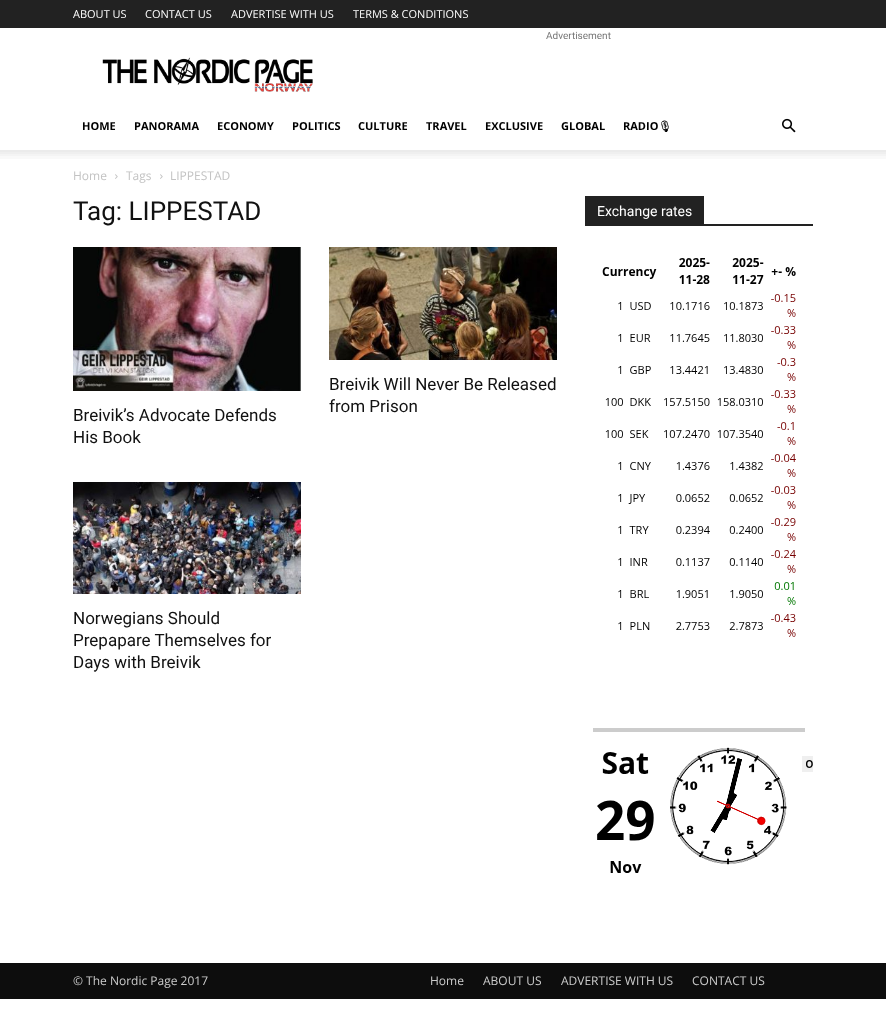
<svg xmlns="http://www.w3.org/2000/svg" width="886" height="1019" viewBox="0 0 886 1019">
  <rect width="100%" height="100%" fill="rgb(255,255,255)"/>
  <rect x="0" y="0" width="886" height="28" fill="rgb(34,34,34)"/>
  <g font-family="Open Sans" font-size="11" fill="rgb(255,255,255)">
    <text x="73" y="18">ABOUT US</text>
    <text x="145" y="18">CONTACT US</text>
    <text x="231" y="18">ADVERTISE WITH US</text>
    <text x="353" y="18">TERMS &amp; CONDITIONS</text>
  </g>
  <text x="546" y="39" font-family="Roboto" font-size="10" fill="rgb(118,118,118)">Advertisement</text>
  <image x="102" y="57" width="211" height="35" href="pic1.png"/>
  <g font-family="Open Sans" font-size="11" font-weight="bold" fill="rgb(0,0,0)">
    <text x="82" y="130">HOME</text>
    <text x="134" y="130">PANORAMA</text>
    <text x="217" y="130">ECONOMY</text>
    <text x="292" y="130">POLITICS</text>
    <text x="358" y="130">CULTURE</text>
    <text x="426" y="130">TRAVEL</text>
    <text x="485" y="130">EXCLUSIVE</text>
    <text x="561" y="130">GLOBAL</text>
    <text x="623" y="130">RADIO</text>
  </g>
  <text x="658" y="130" font-family="Noto Emoji" font-size="11" font-weight="bold" fill="rgb(0,0,0)">🎙</text>
  <image x="782" y="118" width="14" height="15" href="pic2.png"/>
  <image x="0" y="150" width="886" height="9" href="pic3.png"/>
  <text x="73" y="180" font-family="Open Sans" font-size="12" fill="rgb(195,195,195)">Home</text>
  <image x="115" y="174" width="3" height="5" href="pic4.png"/>
  <text x="126" y="180" font-family="Open Sans" font-size="12" fill="rgb(195,195,195)">Tags</text>
  <image x="160" y="174" width="3" height="5" href="pic4.png"/>
  <text x="170" y="180" font-family="Open Sans" font-size="12" fill="rgb(195,195,195)">LIPPESTAD</text>
  <text x="73" y="220" font-family="Roboto" font-size="26" fill="rgb(17,17,17)">Tag: LIPPESTAD</text>
  <image x="329" y="247" width="228" height="113" href="pic5.png"/>
  <g font-family="Roboto" font-size="17" fill="rgb(17,17,17)">
    <text>
      <tspan x="329" y="390">Breivik Will Never Be Released</tspan>
      <tspan x="329" y="412">from Prison</tspan>
    </text>
  </g>
  <image x="73" y="247" width="228" height="144" href="pic6.png"/>
  <g font-family="Roboto" font-size="17" fill="rgb(17,17,17)">
    <text>
      <tspan x="73" y="421">Breivik’s Advocate Defends</tspan>
      <tspan x="73" y="443">His Book</tspan>
    </text>
  </g>
  <image x="73" y="482" width="228" height="112" href="pic7.png"/>
  <g font-family="Roboto" font-size="17" fill="rgb(17,17,17)">
    <text>
      <tspan x="73" y="624">Norwegians Should</tspan>
      <tspan x="73" y="646">Prepapare Themselves for</tspan>
      <tspan x="73" y="668">Days with Breivik</tspan>
    </text>
  </g>
  <rect x="585" y="224" width="228" height="2" fill="rgb(34,34,34)"/>
  <rect x="585" y="196" width="119" height="28" fill="rgb(34,34,34)"/>
  <text x="597" y="216" font-family="Roboto" font-size="14" fill="rgb(255,255,255)">Exchange rates</text>
  <image x="602" y="258" width="194" height="379" href="pic8.png"/>
  <image x="593" y="728" width="220" height="145" href="pic9.png"/>
  <rect x="0" y="963" width="886" height="36" fill="rgb(13,13,13)"/>
  <g font-family="Open Sans" font-size="12" fill="rgb(204,204,204)">
    <text x="73" y="985">© The Nordic Page 2017</text>
    <text x="430" y="985">Home</text>
    <text x="483" y="985">ABOUT US</text>
    <text x="561" y="985">ADVERTISE WITH US</text>
    <text x="692" y="985">CONTACT US</text>
  </g>
</svg>
